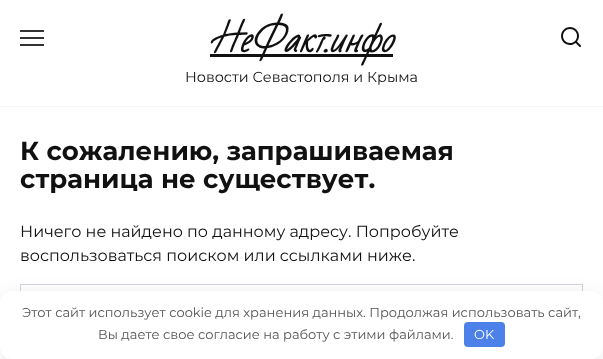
<svg xmlns="http://www.w3.org/2000/svg" width="603" height="359" viewBox="0 0 603 359">
  <style>*{font-kerning:none!important;font-variant-ligatures:none!important}</style>
  <rect width="100%" height="100%" fill="rgb(255,255,255)"/>
  <rect x="0" y="106" width="603" height="1" fill="rgb(242,245,249)"/>
  <rect x="20" y="30" width="24" height="2" fill="rgb(51,51,51)"/>
  <rect x="20" y="37" width="24" height="2" fill="rgb(51,51,51)"/>
  <rect x="20" y="44" width="24" height="2" fill="rgb(51,51,51)"/>
  <rect x="210" y="54" width="183" height="3" fill="rgb(17,17,17)"/>
  <text x="210" y="52" font-family="Bad Script" font-size="33" font-weight="bold" font-style="italic" fill="rgb(17,17,17)">НеФакт.инфо</text>
  <text x="185" y="82" font-family="Montserrat" font-size="14.4" fill="rgb(17,17,17)">Новости Севастополя и Крыма</text>
  <text x="559" y="47" font-family="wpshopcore" font-size="24" fill="rgb(17,17,17)">🔍</text>
  <g font-family="Montserrat" font-size="26" font-weight="bold" fill="rgb(17,17,17)">
    <text>
      <tspan x="20" y="160">К сожалению, запрашиваемая</tspan>
      <tspan x="20" y="188">страница не существует.</tspan>
    </text>
  </g>
  <g font-family="Montserrat" font-size="16" fill="rgb(17,17,17)">
    <text>
      <tspan x="20" y="237">Ничего не найдено по данному адресу. Попробуйте</tspan>
      <tspan x="20" y="261">воспользоваться поиском или ссылками ниже.</tspan>
    </text>
  </g>
  <rect x="20.5" y="284.5" width="562" height="37" fill="none" stroke="rgb(206,212,218)"/>
  <rect x="5" y="299" width="593" height="58" rx="7" fill="rgba(41,44,56,0.2)" filter="blur(10px)"/>
  <rect x="0" y="291" width="603" height="68" rx="12" fill="rgb(255,255,255)"/>
  <g font-family="Montserrat" font-size="13" fill="rgb(85,85,85)">
    <text x="22" y="317">Этот сайт использует cookie для хранения данных. Продолжая использовать сайт,</text>
    <text x="98" y="339">Вы даете свое согласие на работу с этими файлами.</text>
  </g>
  <rect x="464" y="322" width="41" height="25" rx="4" fill="rgb(75,129,232)"/>
  <text x="474" y="339" font-family="Montserrat" font-size="13" fill="rgb(255,255,255)">OK</text>
</svg>
